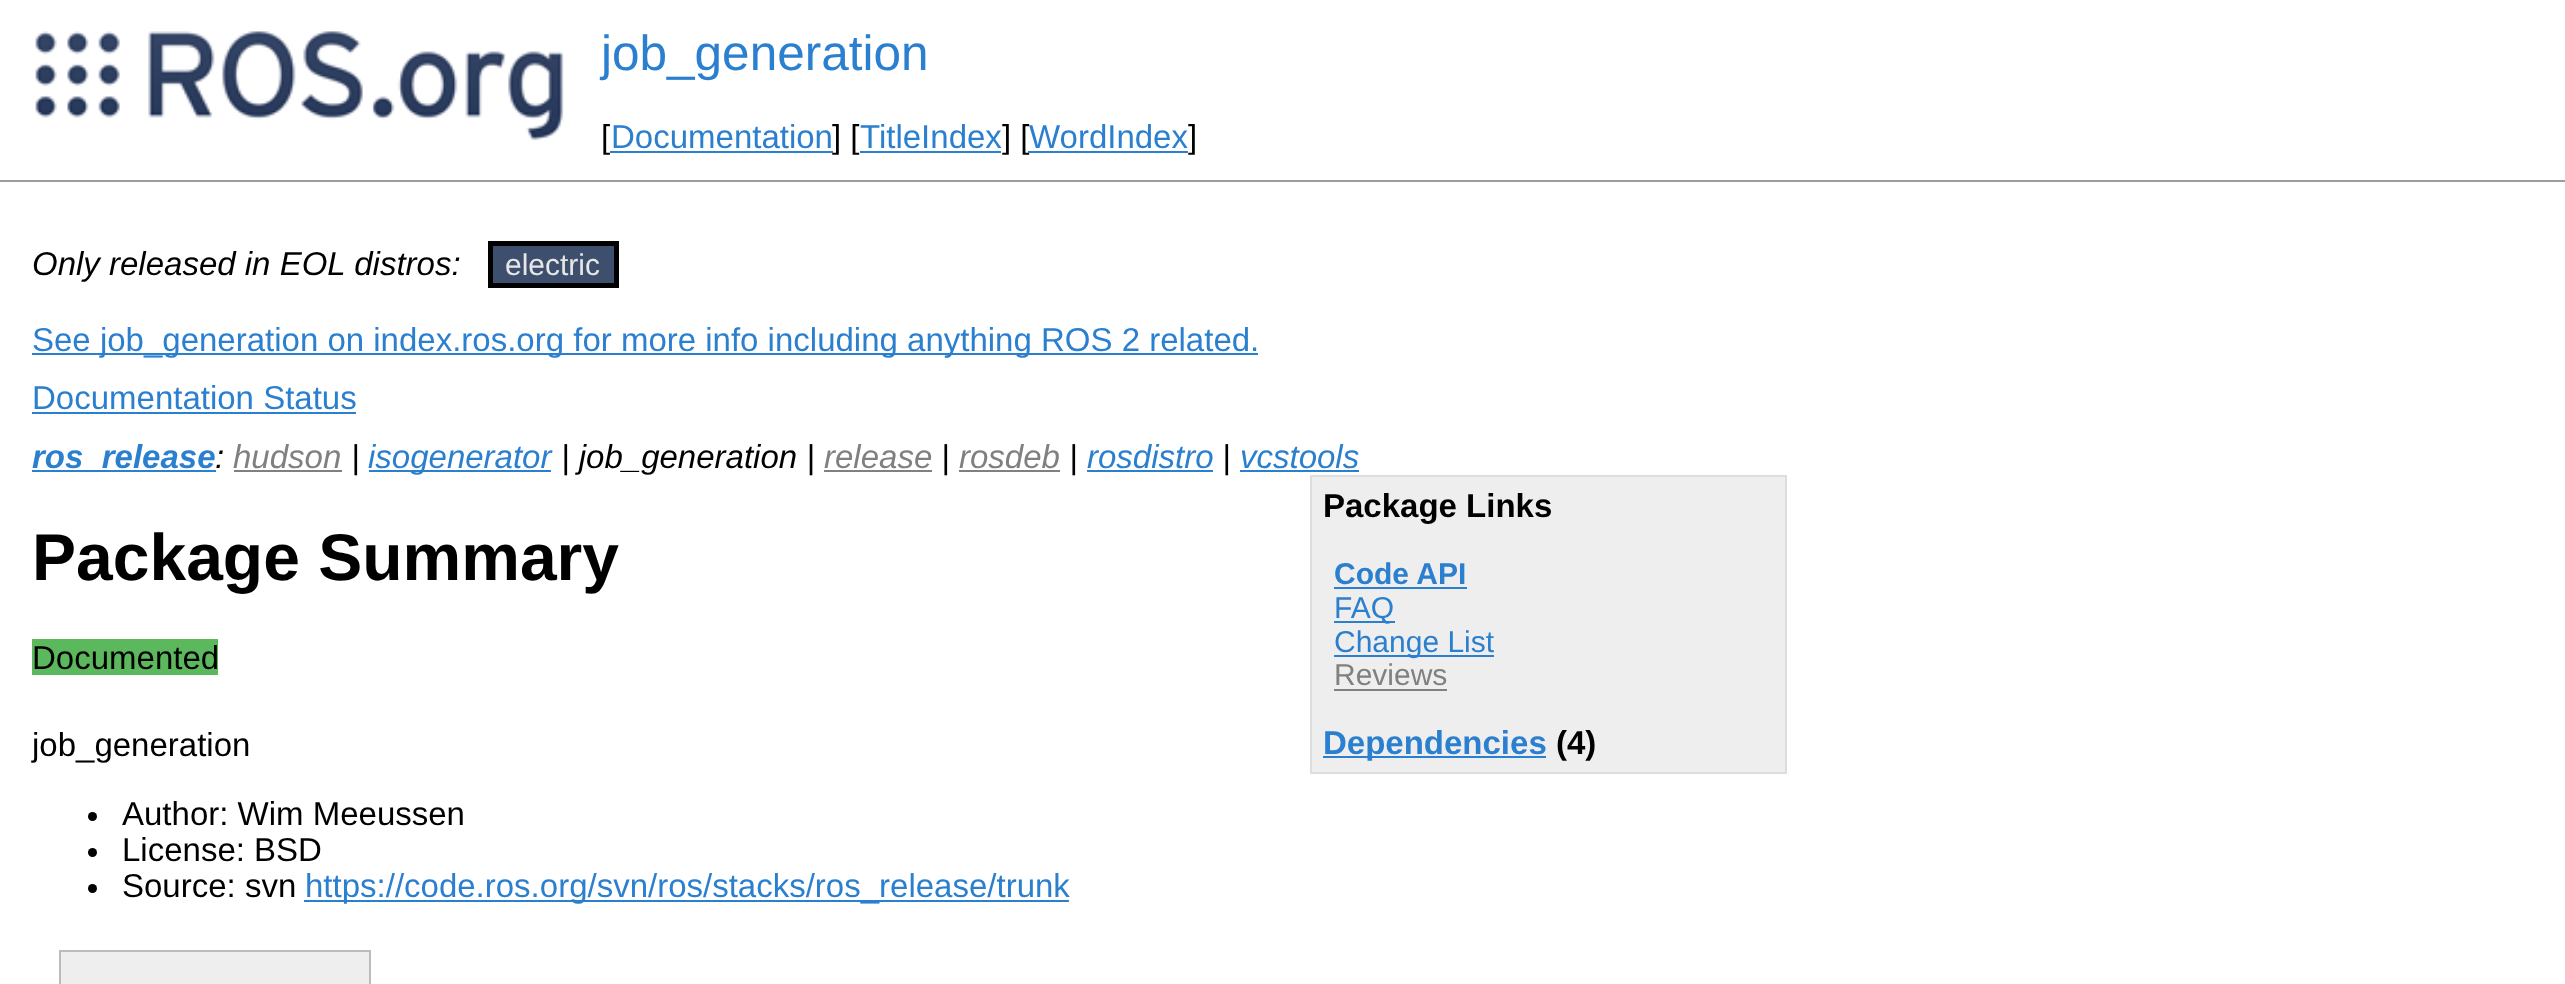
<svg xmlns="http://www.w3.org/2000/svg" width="2565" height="984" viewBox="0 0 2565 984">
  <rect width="100%" height="100%" fill="rgb(255,255,255)"/>
  <image x="35" y="31" width="529" height="110" href="pic1.png"/>
  <text x="601" y="70" font-family="Liberation Sans" font-size="49.5" fill="rgb(43,127,207)">job_generation</text>
  <text x="601" y="148" font-family="Liberation Sans" font-size="33" fill="rgb(0,0,0)">[</text>
  <text x="611" y="148" font-family="Liberation Sans" font-size="33" fill="rgb(43,127,207)">Documentation</text>
  <rect x="610" y="151" width="223" height="2" fill="rgb(43,127,207)"/>
  <text x="832" y="148" font-family="Liberation Sans" font-size="33" fill="rgb(0,0,0)">] [</text>
  <text x="860" y="148" font-family="Liberation Sans" font-size="33" fill="rgb(43,127,207)">TitleIndex</text>
  <rect x="860" y="151" width="141" height="2" fill="rgb(43,127,207)"/>
  <text x="1002" y="148" font-family="Liberation Sans" font-size="33" fill="rgb(0,0,0)">] [</text>
  <text x="1029" y="148" font-family="Liberation Sans" font-size="33" fill="rgb(43,127,207)">WordIndex</text>
  <rect x="1028" y="151" width="160" height="2" fill="rgb(43,127,207)"/>
  <text x="1188" y="148" font-family="Liberation Sans" font-size="33" fill="rgb(0,0,0)">]</text>
  <rect x="0" y="180" width="2565" height="2" fill="rgb(156,156,156)"/>
  <text x="32" y="275" font-family="Liberation Sans" font-size="33" font-style="italic" fill="rgb(0,0,0)">Only released in EOL distros:</text>
  <rect x="490.5" y="243.5" width="126" height="42" fill="rgb(62,79,110)" stroke="rgb(0,0,0)" stroke-width="5"/>
  <text x="505" y="275" font-family="Liberation Sans" font-size="30" fill="rgb(230,230,230)">electric</text>
  <rect x="32" y="353" width="1226" height="2" fill="rgb(43,127,207)"/>
  <g font-family="Liberation Sans" font-size="33" fill="rgb(43,127,207)">
    <text>
      <tspan x="32" y="351">See job_generation on index.ros.org for more info including anything ROS 2 related.</tspan>
      <tspan x="32" y="409">Documentation Status</tspan>
    </text>
  </g>
  <rect x="32" y="412" width="324" height="2" fill="rgb(43,127,207)"/>
  <rect x="32" y="470" width="184" height="2" fill="rgb(43,127,207)"/>
  <text x="32" y="468" font-family="Liberation Sans" font-size="33" font-weight="bold" font-style="italic" fill="rgb(43,127,207)">ros_release</text>
  <text x="215" y="468" font-family="Liberation Sans" font-size="33" font-style="italic" fill="rgb(0,0,0)">:</text>
  <text x="233" y="468" font-family="Liberation Sans" font-size="33" font-style="italic" fill="rgb(128,128,128)">hudson</text>
  <rect x="234" y="470" width="108" height="2" fill="rgb(128,128,128)"/>
  <text x="351" y="468" font-family="Liberation Sans" font-size="33" font-style="italic" fill="rgb(0,0,0)">|</text>
  <rect x="369" y="470" width="182" height="2" fill="rgb(43,127,207)"/>
  <text x="368" y="468" font-family="Liberation Sans" font-size="33" font-style="italic" fill="rgb(43,127,207)">isogenerator</text>
  <text x="561" y="468" font-family="Liberation Sans" font-size="33" font-style="italic" fill="rgb(0,0,0)">| job_generation |</text>
  <text x="824" y="468" font-family="Liberation Sans" font-size="33" font-style="italic" fill="rgb(128,128,128)">release</text>
  <rect x="824" y="470" width="108" height="2" fill="rgb(128,128,128)"/>
  <text x="941" y="468" font-family="Liberation Sans" font-size="33" font-style="italic" fill="rgb(0,0,0)">|</text>
  <text x="959" y="468" font-family="Liberation Sans" font-size="33" font-style="italic" fill="rgb(128,128,128)">rosdeb</text>
  <rect x="959" y="470" width="101" height="2" fill="rgb(128,128,128)"/>
  <text x="1069" y="468" font-family="Liberation Sans" font-size="33" font-style="italic" fill="rgb(0,0,0)">|</text>
  <text x="1087" y="468" font-family="Liberation Sans" font-size="33" font-style="italic" fill="rgb(43,127,207)">rosdistro</text>
  <rect x="1087" y="470" width="126" height="2" fill="rgb(43,127,207)"/>
  <text x="1222" y="468" font-family="Liberation Sans" font-size="33" font-style="italic" fill="rgb(0,0,0)">|</text>
  <text x="1240" y="468" font-family="Liberation Sans" font-size="33" font-style="italic" fill="rgb(43,127,207)">vcstools</text>
  <rect x="1240" y="470" width="119" height="2" fill="rgb(43,127,207)"/>
  <text x="32" y="580" font-family="Liberation Sans" font-size="66" font-weight="bold" fill="rgb(0,0,0)">Package Summary</text>
  <rect x="1311" y="476" width="475" height="297" fill="rgb(238,238,238)" stroke="rgb(221,221,221)" stroke-width="2"/>
  <text x="1323" y="517" font-family="Liberation Sans" font-size="33" font-weight="bold" fill="rgb(0,0,0)">Package Links</text>
  <text x="1334" y="584" font-family="Liberation Sans" font-size="30" font-weight="bold" fill="rgb(43,127,207)">Code API</text>
  <rect x="1334" y="587" width="133" height="2" fill="rgb(43,127,207)"/>
  <rect x="1334" y="621" width="61" height="2" fill="rgb(43,127,207)"/>
  <text x="1334" y="618" font-family="Liberation Sans" font-size="30" fill="rgb(43,127,207)">FAQ</text>
  <rect x="1334" y="655" width="160" height="2" fill="rgb(43,127,207)"/>
  <text x="1334" y="652" font-family="Liberation Sans" font-size="30" fill="rgb(43,127,207)">Change List</text>
  <text x="1334" y="685" font-family="Liberation Sans" font-size="30" fill="rgb(128,128,128)">Reviews</text>
  <rect x="1334" y="689" width="113" height="2" fill="rgb(128,128,128)"/>
  <rect x="1323" y="756" width="223" height="2" fill="rgb(43,127,207)"/>
  <text x="1323" y="754" font-family="Liberation Sans" font-size="33" font-weight="bold" fill="rgb(43,127,207)">Dependencies</text>
  <text x="1556" y="754" font-family="Liberation Sans" font-size="33" font-weight="bold" fill="rgb(0,0,0)">(4)</text>
  <rect x="32" y="639" width="186" height="36" fill="rgb(92,184,92)"/>
  <g font-family="Liberation Sans" font-size="33" fill="rgb(0,0,0)">
    <text x="32" y="669">Documented</text>
    <text x="32" y="756">job_generation</text>
  </g>
  <circle cx="92.5" cy="816.5" r="4.5" fill="rgb(0,0,0)"/>
  <text x="122" y="825" font-family="Liberation Sans" font-size="33" fill="rgb(0,0,0)">Author: Wim Meeussen</text>
  <circle cx="92.5" cy="852.5" r="4.5" fill="rgb(0,0,0)"/>
  <text x="122" y="861" font-family="Liberation Sans" font-size="33" fill="rgb(0,0,0)">License: BSD</text>
  <circle cx="92.5" cy="888.5" r="4.5" fill="rgb(0,0,0)"/>
  <text x="122" y="897" font-family="Liberation Sans" font-size="33" fill="rgb(0,0,0)">Source: svn</text>
  <rect x="304" y="900" width="765" height="2" fill="rgb(43,127,207)"/>
  <text x="305" y="897" font-family="Liberation Sans" font-size="33" fill="rgb(43,127,207)">https://code.ros.org/svn/ros/stacks/ros_release/trunk</text>
  <rect x="60" y="951" width="310" height="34" fill="rgb(238,238,238)" stroke="rgb(187,187,187)" stroke-width="2"/>
</svg>
